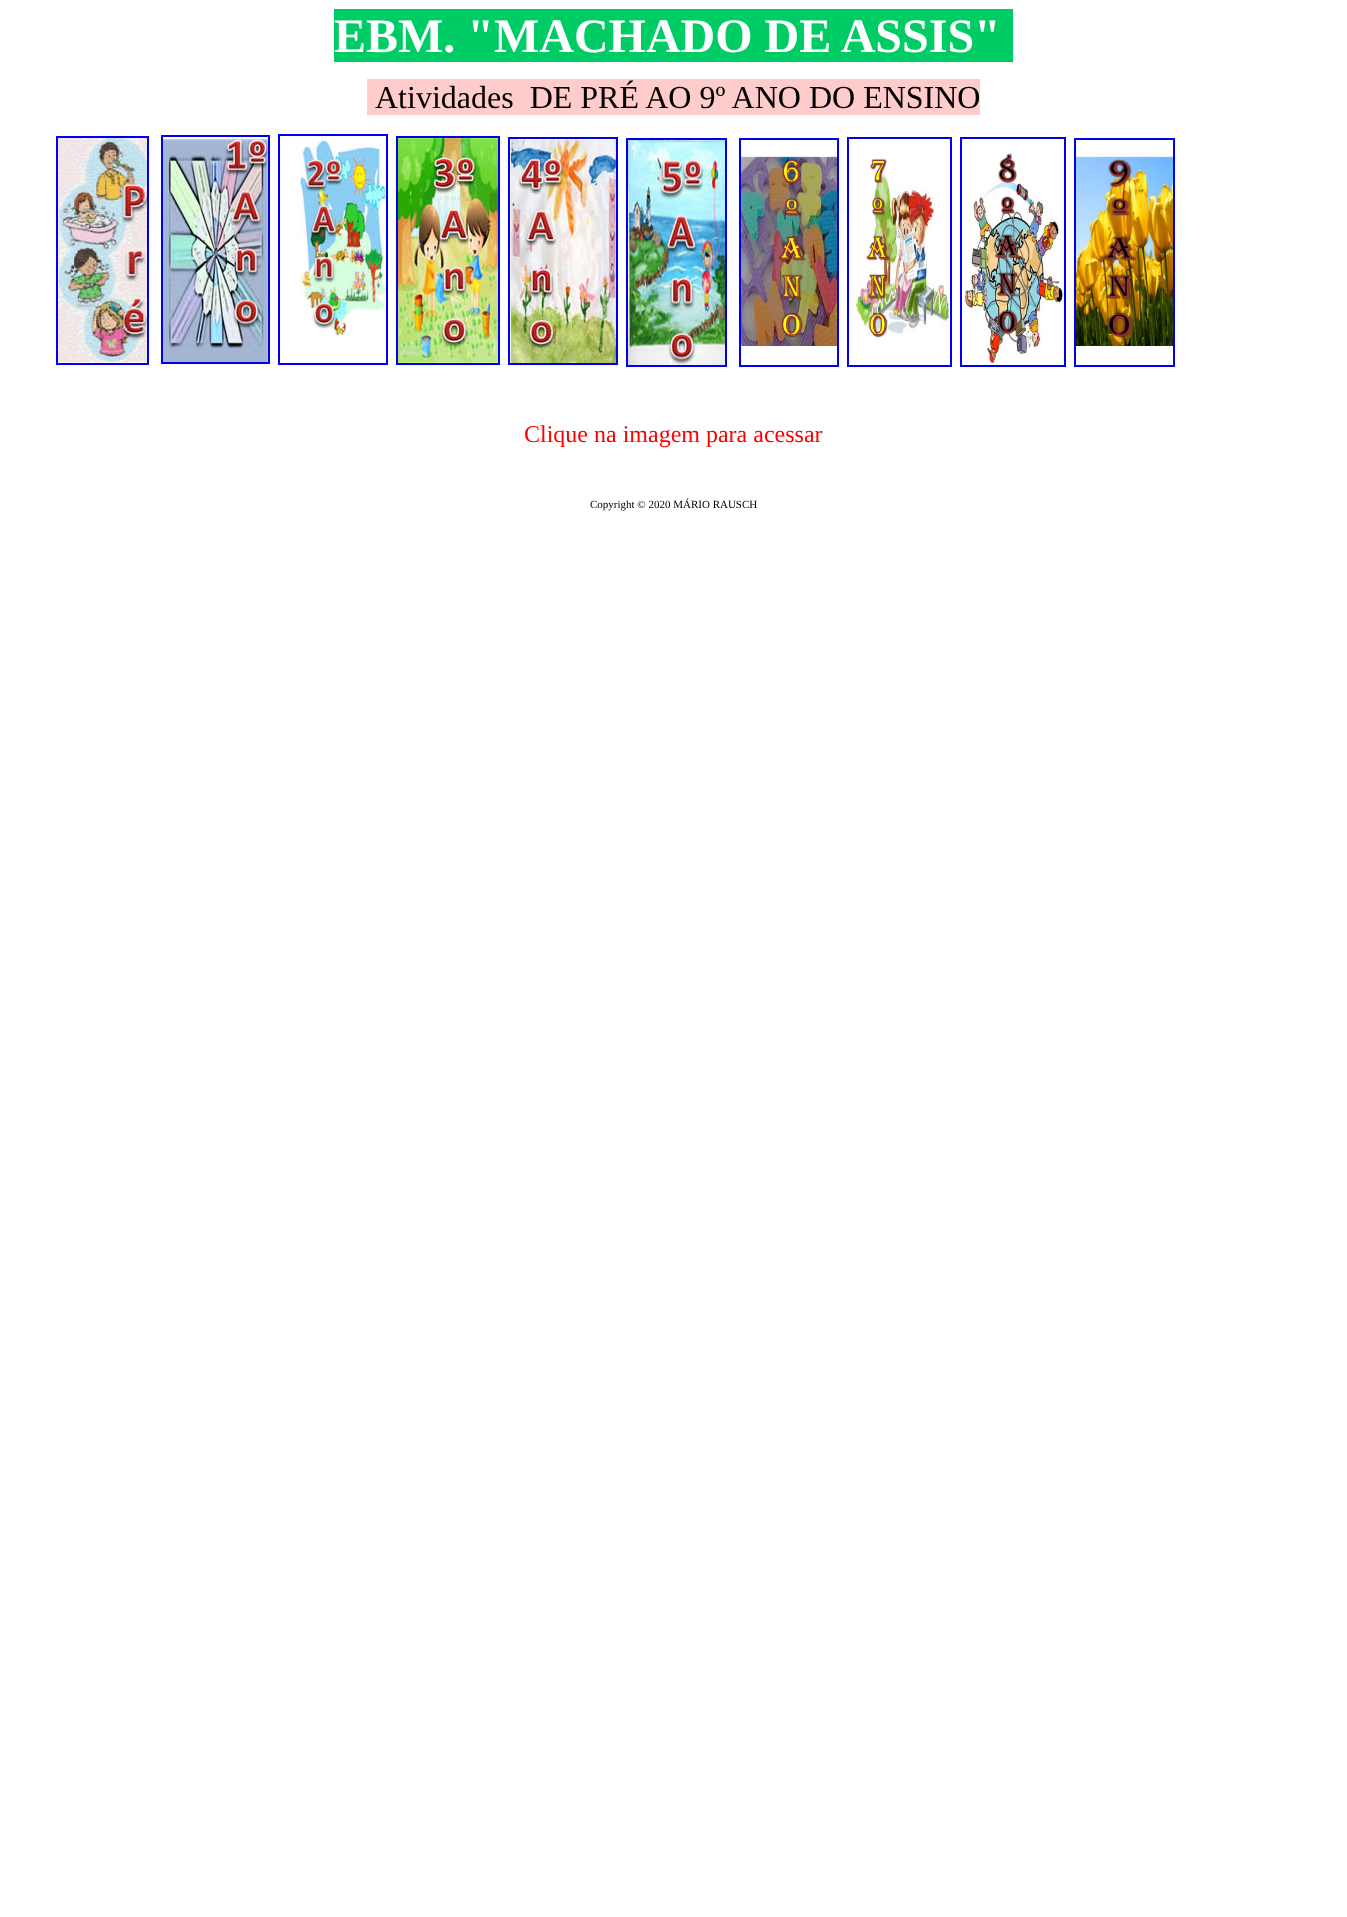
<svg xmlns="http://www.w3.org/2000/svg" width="1347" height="1917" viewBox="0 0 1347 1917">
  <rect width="100%" height="100%" fill="rgb(255,255,255)"/>
  <rect x="334" y="9" width="679" height="53" fill="rgb(0,204,102)"/>
  <text x="334" y="52" font-family="Liberation Serif" font-size="48" font-weight="bold" fill="rgb(255,255,255)">EBM. "MACHADO DE ASSIS"</text>
  <rect x="367" y="79" width="613" height="36" fill="rgb(255,204,204)"/>
  <text x="375" y="108" font-family="Liberation Serif" font-size="32" fill="rgb(0,0,0)" xml:space="preserve">Atividades  DE PRÉ AO 9º ANO DO ENSINO</text>
  <rect x="57" y="137" width="91" height="227" fill="none" stroke="rgb(0,0,238)" stroke-width="2"/>
  <rect x="162" y="136" width="107" height="227" fill="none" stroke="rgb(0,0,238)" stroke-width="2"/>
  <rect x="279" y="135" width="108" height="229" fill="none" stroke="rgb(0,0,238)" stroke-width="2"/>
  <image x="58" y="138" width="89" height="225" href="pic1.png"/>
  <image x="163" y="137" width="105" height="225" href="pic2.png"/>
  <image x="300" y="136" width="86" height="200" href="pic3.png"/>
  <rect x="397" y="137" width="102" height="227" fill="none" stroke="rgb(0,0,238)" stroke-width="2"/>
  <rect x="509" y="138" width="108" height="226" fill="none" stroke="rgb(0,0,238)" stroke-width="2"/>
  <rect x="848" y="138" width="103" height="228" fill="none" stroke="rgb(0,0,238)" stroke-width="2"/>
  <rect x="961" y="138" width="104" height="228" fill="none" stroke="rgb(0,0,238)" stroke-width="2"/>
  <image x="398" y="138" width="100" height="225" href="pic4.png"/>
  <image x="510" y="139" width="106" height="224" href="pic5.png"/>
  <rect x="627" y="139" width="99" height="227" fill="none" stroke="rgb(0,0,238)" stroke-width="2"/>
  <rect x="740" y="139" width="98" height="227" fill="none" stroke="rgb(0,0,238)" stroke-width="2"/>
  <rect x="1075" y="139" width="99" height="227" fill="none" stroke="rgb(0,0,238)" stroke-width="2"/>
  <image x="628" y="140" width="97" height="225" href="pic6.png"/>
  <image x="741" y="156" width="96" height="190" href="pic7.png"/>
  <image x="855" y="158" width="95" height="180" href="pic8.png"/>
  <image x="963" y="153" width="101" height="212" href="pic9.png"/>
  <image x="1076" y="156" width="97" height="190" href="pic10.png"/>
  <text x="524" y="442" font-family="Liberation Serif" font-size="24" fill="rgb(255,0,0)">Clique na imagem para acessar</text>
  <text x="590" y="508" font-family="Liberation Serif" font-size="11" fill="rgb(0,0,0)">Copyright © 2020 MÁRIO RAUSCH</text>
</svg>
